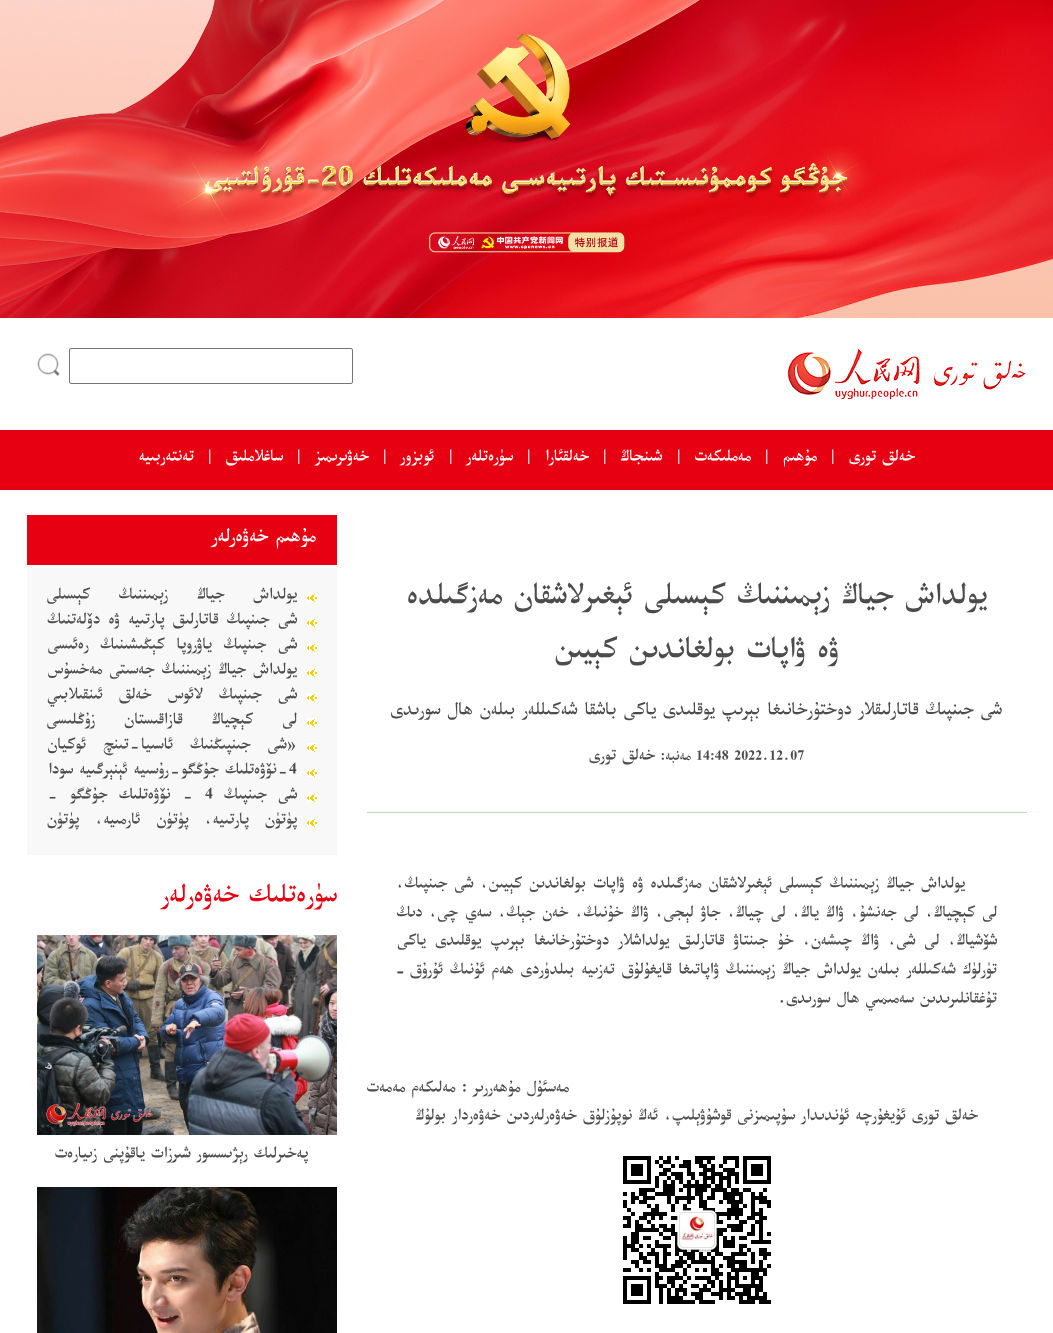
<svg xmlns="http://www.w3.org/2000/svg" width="1053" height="1333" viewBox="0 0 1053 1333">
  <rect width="100%" height="100%" fill="rgb(255,255,255)"/>
  <image x="0" y="0" width="1053" height="318" href="pic1.png"/>
  <image x="787" y="349" width="239" height="51" href="pic2.png"/>
  <rect x="69.5" y="348.5" width="283" height="35" rx="1.5" fill="none" stroke="rgb(118,118,118)"/>
  <image x="37" y="353" width="23" height="23" href="pic3.png"/>
  <rect x="0" y="430" width="1053" height="60" fill="rgb(230,0,18)"/>
  <text x="915" y="462" font-family="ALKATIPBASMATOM" font-size="16" direction="rtl" fill="rgb(255,255,255)">خەلق تورى</text>
  <text x="831" y="462" font-family="ALKATIPBASMATOM" font-size="16" fill="rgb(255,255,255)">|</text>
  <text x="817" y="462" font-family="ALKATIPBASMATOM" font-size="16" direction="rtl" fill="rgb(255,255,255)">مۇھىم</text>
  <text x="765" y="462" font-family="ALKATIPBASMATOM" font-size="16" fill="rgb(255,255,255)">|</text>
  <text x="751" y="462" font-family="ALKATIPBASMATOM" font-size="16" direction="rtl" fill="rgb(255,255,255)">مەملىكەت</text>
  <text x="677" y="462" font-family="ALKATIPBASMATOM" font-size="16" fill="rgb(255,255,255)">|</text>
  <text x="662" y="462" font-family="ALKATIPBASMATOM" font-size="16" direction="rtl" fill="rgb(255,255,255)">شىنجاڭ</text>
  <text x="603" y="462" font-family="ALKATIPBASMATOM" font-size="16" fill="rgb(255,255,255)">|</text>
  <text x="589" y="462" font-family="ALKATIPBASMATOM" font-size="16" direction="rtl" fill="rgb(255,255,255)">خەلقئارا</text>
  <text x="527" y="462" font-family="ALKATIPBASMATOM" font-size="16" fill="rgb(255,255,255)">|</text>
  <text x="513" y="462" font-family="ALKATIPBASMATOM" font-size="16" direction="rtl" fill="rgb(255,255,255)">سۈرەتلەر</text>
  <text x="449" y="462" font-family="ALKATIPBASMATOM" font-size="16" fill="rgb(255,255,255)">|</text>
  <text x="434" y="462" font-family="ALKATIPBASMATOM" font-size="16" direction="rtl" fill="rgb(255,255,255)">ئوبزور</text>
  <text x="383" y="462" font-family="ALKATIPBASMATOM" font-size="16" fill="rgb(255,255,255)">|</text>
  <text x="369" y="462" font-family="ALKATIPBASMATOM" font-size="16" direction="rtl" fill="rgb(255,255,255)">خەۋىرىمىز</text>
  <text x="297" y="462" font-family="ALKATIPBASMATOM" font-size="16" fill="rgb(255,255,255)">|</text>
  <text x="283" y="462" font-family="ALKATIPBASMATOM" font-size="16" direction="rtl" fill="rgb(255,255,255)">ساغلاملىق</text>
  <text x="208" y="462" font-family="ALKATIPBASMATOM" font-size="16" fill="rgb(255,255,255)">|</text>
  <text x="194" y="462" font-family="ALKATIPBASMATOM" font-size="16" direction="rtl" fill="rgb(255,255,255)">تەنتەربىيە</text>
  <rect x="367" y="812" width="660" height="1" fill="rgb(190,219,184)"/>
  <g font-family="ALKATIPBASMATOM" font-size="30" direction="rtl" fill="rgb(76,76,76)">
    <text x="987" y="606">يولداش جياڭ زېمىننىڭ كېسىلى ئېغىرلاشقان مەزگىلدە</text>
    <text x="839" y="660">ۋە ۋاپات بولغاندىن كېيىن</text>
  </g>
  <text x="1002" y="716" font-family="ALKATIPBASMATOM" font-size="18" direction="rtl" fill="rgb(76,76,76)">شى جىنپىڭ قاتارلىقلار دوختۇرخانىغا بېرىپ يوقلىدى ياكى باشقا شەكىللەر بىلەن ھال سورىدى</text>
  <text x="696" y="761" font-family="ALKATIPBASMATOM" font-size="14" fill="rgb(76,76,76)">14:48 2022.12.07</text>
  <text x="691" y="761" font-family="ALKATIPBASMATOM" font-size="14" direction="rtl" fill="rgb(76,76,76)">مەنبە:</text>
  <g font-family="ALKATIPBASMATOM" font-size="16" direction="rtl" fill="rgb(76,76,76)">
    <text x="655" y="761">خەلق تورى</text>
    <text x="965" y="889" word-spacing="1">يولداش جياڭ زېمىننىڭ كېسىلى ئېغىرلاشقان مەزگىلدە ۋە ۋاپات بولغاندىن كېيىن، شى جىنپىڭ،</text>
    <text>
      <tspan x="997" y="918" word-spacing="1">لى كېچياڭ، لى جەنشۇ، ۋاڭ ياڭ، لى چياڭ، جاۋ لېجى، ۋاڭ خۇنىڭ، خەن جېڭ، سەي چى، دىڭ</tspan>
      <tspan x="997" y="946" word-spacing="3.1">شۆشياڭ، لى شى، ۋاڭ چىشەن، خۇ جىنتاۋ قاتارلىق يولداشلار دوختۇرخانىغا بېرىپ يوقلىدى ياكى</tspan>
      <tspan x="997" y="975" word-spacing="0.8">تۈرلۈك شەكىللەر بىلەن يولداش جياڭ زېمىننىڭ ۋاپاتىغا قايغۇلۇق تەزىيە بىلدۈردى ھەم ئۇنىڭ ئۇرۇق ـ</tspan>
      <tspan x="997" y="1004">تۇغقانلىرىدىن سەمىمىي ھال سورىدى.</tspan>
    </text>
    <text x="569" y="1093">مەسئۇل مۇھەررىر : مەلىكەم مەمەت</text>
    <text x="978" y="1121">خەلق تورى ئۇيغۇرچە ئۈندىدار سۇپىمىزنى قوشۇۋېلىپ، ئەڭ نوپۇزلۇق خەۋەرلەردىن خەۋەردار بولۇڭ</text>
  </g>
  <image x="623" y="1156" width="148" height="148" href="pic4.png"/>
  <rect x="27" y="515" width="310" height="50" fill="rgb(230,0,18)"/>
  <text x="316" y="543" font-family="ALKATIPBASMATOM" font-size="19" direction="rtl" fill="rgb(255,255,255)">مۇھىم خەۋەرلەر</text>
  <rect x="27" y="565" width="310" height="290" fill="rgb(248,248,248)"/>
  <image x="307" y="593" width="10" height="9" href="pic5.png"/>
  <text x="297" y="600" word-spacing="22.5" font-family="ALKATIPBASMATOM" font-size="16" direction="rtl" fill="rgb(76,76,76)">يولداش جياڭ زېمىننىڭ كېسىلى</text>
  <image x="307" y="618" width="10" height="9" href="pic5.png"/>
  <text x="297" y="625" word-spacing="2.25" font-family="ALKATIPBASMATOM" font-size="16" direction="rtl" fill="rgb(76,76,76)">شى جىنپىڭ قاتارلىق پارتىيە ۋە دۆلەتنىڭ</text>
  <image x="307" y="643" width="10" height="9" href="pic5.png"/>
  <text x="297" y="650" word-spacing="5.5" font-family="ALKATIPBASMATOM" font-size="16" direction="rtl" fill="rgb(76,76,76)">شى جىنپىڭ ياۋروپا كېڭىشىنىڭ رەئىسى</text>
  <image x="307" y="668" width="10" height="9" href="pic5.png"/>
  <text x="297" y="675" word-spacing="1" font-family="ALKATIPBASMATOM" font-size="16" direction="rtl" fill="rgb(76,76,76)">يولداش جياڭ زېمىننىڭ جەسىتى مەخسۇس</text>
  <image x="307" y="693" width="10" height="9" href="pic5.png"/>
  <text x="297" y="700" word-spacing="10" font-family="ALKATIPBASMATOM" font-size="16" direction="rtl" fill="rgb(76,76,76)">شى جىنپىڭ لائوس خەلق ئىنقىلابىي</text>
  <image x="307" y="718" width="10" height="9" href="pic5.png"/>
  <text x="297" y="725" word-spacing="23" font-family="ALKATIPBASMATOM" font-size="16" direction="rtl" fill="rgb(76,76,76)">لى كېچياڭ قازاقىستان زۇڭلىسى</text>
  <image x="307" y="743" width="10" height="9" href="pic5.png"/>
  <text x="297" y="750" word-spacing="11" font-family="ALKATIPBASMATOM" font-size="16" direction="rtl" fill="rgb(76,76,76)">«شى جىنپىڭنىڭ ئاسىيا-تىنچ ئوكيان</text>
  <image x="307" y="768" width="10" height="9" href="pic5.png"/>
  <text x="289" y="775" font-family="ALKATIPBASMATOM" font-size="16" fill="rgb(76,76,76)">4</text>
  <text x="289" y="775" font-family="ALKATIPBASMATOM" font-size="16" direction="rtl" fill="rgb(76,76,76)">-نۆۋەتلىك جۇڭگو-رۇسىيە ئېنېرگىيە سودا</text>
  <image x="307" y="793" width="10" height="9" href="pic5.png"/>
  <text x="297" y="800" word-spacing="5" font-family="ALKATIPBASMATOM" font-size="16" direction="rtl" fill="rgb(76,76,76)">شى جىنپىڭ</text>
  <text x="205" y="800" font-family="ALKATIPBASMATOM" font-size="16" fill="rgb(76,76,76)">4</text>
  <text x="194" y="800" word-spacing="5" font-family="ALKATIPBASMATOM" font-size="16" direction="rtl" fill="rgb(76,76,76)">- نۆۋەتلىك جۇڭگو -</text>
  <image x="307" y="818" width="10" height="9" href="pic5.png"/>
  <text x="297" y="825" word-spacing="10" font-family="ALKATIPBASMATOM" font-size="16" direction="rtl" fill="rgb(76,76,76)">پۈتۈن پارتىيە، پۈتۈن ئارمىيە، پۈتۈن</text>
  <text x="337" y="904" font-family="ALKATIPBASMATOM" font-size="26" direction="rtl" fill="rgb(230,0,18)">سۈرەتلىك خەۋەرلەر</text>
  <image x="37" y="935" width="300" height="200" href="pic6.png"/>
  <text x="308" y="1159" font-family="ALKATIPBASMATOM" font-size="16" direction="rtl" fill="rgb(76,76,76)">پەخىرلىك رېژىسسور شىرزات ياقۇپنى زىيارەت</text>
  <image x="37" y="1187" width="300" height="146" href="pic7.png"/>
</svg>
